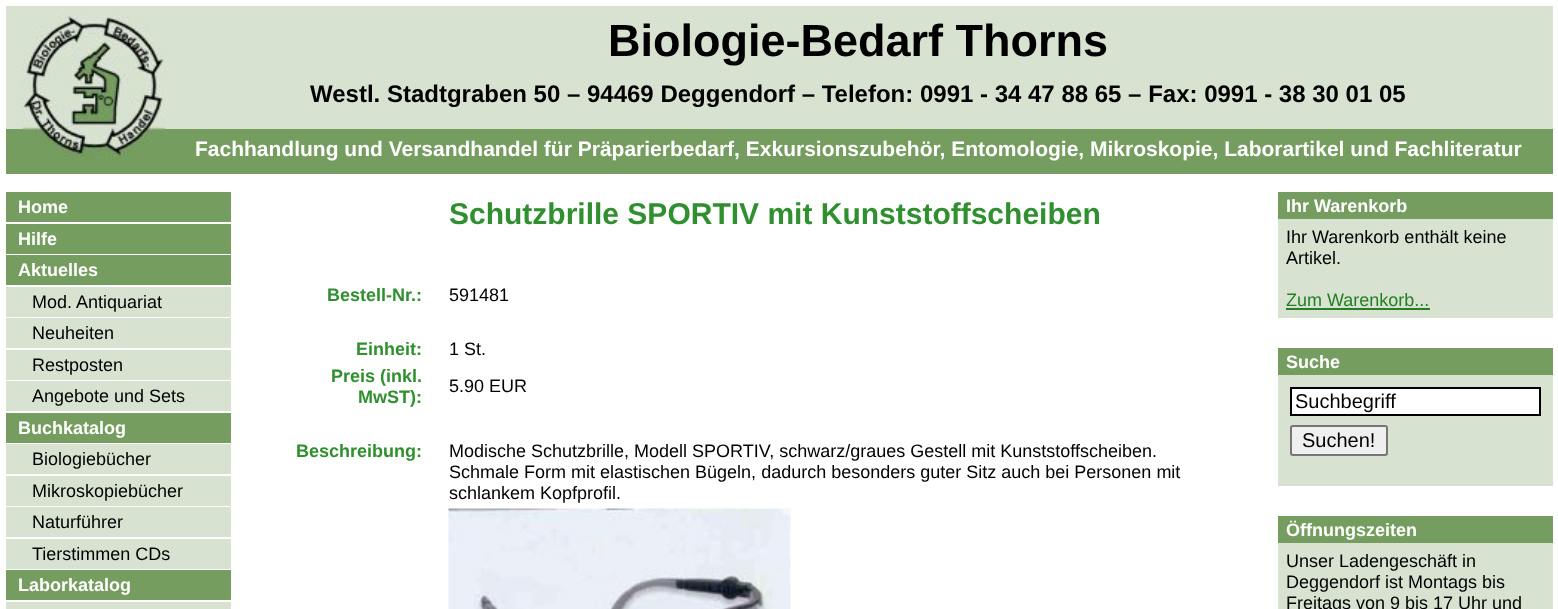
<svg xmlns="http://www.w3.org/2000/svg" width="1558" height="609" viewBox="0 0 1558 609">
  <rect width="100%" height="100%" fill="rgb(255,255,255)"/>
  <rect x="6" y="6" width="1547" height="123" fill="rgb(215,226,209)"/>
  <rect x="6" y="129" width="1547" height="45" fill="rgb(116,157,95)"/>
  <image x="22" y="15" width="143" height="143" href="pic1.png"/>
  <text x="608" y="56" font-family="Liberation Sans" font-size="45" font-weight="bold" fill="rgb(0,0,0)">Biologie-Bedarf Thorns</text>
  <text x="310" y="102" font-family="Liberation Sans" font-size="24" font-weight="bold" fill="rgb(0,0,0)">Westl. Stadtgraben 50 – 94469 Deggendorf – Telefon: 0991 - 34 47 88 65 – Fax: 0991 - 38 30 01 05</text>
  <text x="195" y="156" font-family="Liberation Sans" font-size="21" font-weight="bold" fill="rgb(255,255,255)">Fachhandlung und Versandhandel für Präparierbedarf, Exkursionszubehör, Entomologie, Mikroskopie, Laborartikel und Fachliteratur</text>
  <rect x="6" y="192" width="225" height="30" fill="rgb(116,157,95)"/>
  <text x="18" y="213" font-family="Liberation Sans" font-size="18" font-weight="bold" fill="rgb(255,255,255)">Home</text>
  <rect x="6" y="224" width="225" height="30" fill="rgb(116,157,95)"/>
  <text x="18" y="245" font-family="Liberation Sans" font-size="18" font-weight="bold" fill="rgb(255,255,255)">Hilfe</text>
  <rect x="6" y="255" width="225" height="30" fill="rgb(116,157,95)"/>
  <text x="18" y="276" font-family="Liberation Sans" font-size="18" font-weight="bold" fill="rgb(255,255,255)">Aktuelles</text>
  <rect x="6" y="287" width="225" height="30" fill="rgb(215,226,209)"/>
  <text x="32" y="308" font-family="Liberation Sans" font-size="18" fill="rgb(0,0,0)">Mod. Antiquariat</text>
  <rect x="6" y="318" width="225" height="30" fill="rgb(215,226,209)"/>
  <text x="32" y="339" font-family="Liberation Sans" font-size="18" fill="rgb(0,0,0)">Neuheiten</text>
  <rect x="6" y="350" width="225" height="30" fill="rgb(215,226,209)"/>
  <text x="32" y="371" font-family="Liberation Sans" font-size="18" fill="rgb(0,0,0)">Restposten</text>
  <rect x="6" y="381" width="225" height="30" fill="rgb(215,226,209)"/>
  <text x="32" y="402" font-family="Liberation Sans" font-size="18" fill="rgb(0,0,0)">Angebote und Sets</text>
  <rect x="6" y="413" width="225" height="30" fill="rgb(116,157,95)"/>
  <text x="18" y="434" font-family="Liberation Sans" font-size="18" font-weight="bold" fill="rgb(255,255,255)">Buchkatalog</text>
  <rect x="6" y="444" width="225" height="30" fill="rgb(215,226,209)"/>
  <text x="32" y="465" font-family="Liberation Sans" font-size="18" fill="rgb(0,0,0)">Biologiebücher</text>
  <rect x="6" y="476" width="225" height="30" fill="rgb(215,226,209)"/>
  <text x="32" y="497" font-family="Liberation Sans" font-size="18" fill="rgb(0,0,0)">Mikroskopiebücher</text>
  <rect x="6" y="507" width="225" height="30" fill="rgb(215,226,209)"/>
  <text x="32" y="528" font-family="Liberation Sans" font-size="18" fill="rgb(0,0,0)">Naturführer</text>
  <rect x="6" y="539" width="225" height="30" fill="rgb(215,226,209)"/>
  <text x="32" y="560" font-family="Liberation Sans" font-size="18" fill="rgb(0,0,0)">Tierstimmen CDs</text>
  <rect x="6" y="570" width="225" height="30" fill="rgb(116,157,95)"/>
  <text x="18" y="591" font-family="Liberation Sans" font-size="18" font-weight="bold" fill="rgb(255,255,255)">Laborkatalog</text>
  <rect x="6" y="602" width="225" height="7" fill="rgb(215,226,209)"/>
  <text x="449" y="224" font-family="Liberation Sans" font-size="30" font-weight="bold" fill="rgb(48,144,48)">Schutzbrille SPORTIV mit Kunststoffscheiben</text>
  <text x="327" y="301" font-family="Liberation Sans" font-size="18" font-weight="bold" fill="rgb(48,144,48)">Bestell-Nr.:</text>
  <text x="449" y="301" font-family="Liberation Sans" font-size="18" fill="rgb(0,0,0)">591481</text>
  <text x="356" y="355" font-family="Liberation Sans" font-size="18" font-weight="bold" fill="rgb(48,144,48)">Einheit:</text>
  <text x="449" y="355" font-family="Liberation Sans" font-size="18" fill="rgb(0,0,0)">1 St.</text>
  <g font-family="Liberation Sans" font-size="18" font-weight="bold" fill="rgb(48,144,48)">
    <text x="331" y="382">Preis (inkl.</text>
    <text x="358" y="403">MwST):</text>
  </g>
  <text x="449" y="392" font-family="Liberation Sans" font-size="18" fill="rgb(0,0,0)">5.90 EUR</text>
  <text x="296" y="457" font-family="Liberation Sans" font-size="18" font-weight="bold" fill="rgb(48,144,48)">Beschreibung:</text>
  <g font-family="Liberation Sans" font-size="18" fill="rgb(0,0,0)">
    <text>
      <tspan x="449" y="457">Modische Schutzbrille, Modell SPORTIV, schwarz/graues Gestell mit Kunststoffscheiben.</tspan>
      <tspan x="449" y="478">Schmale Form mit elastischen Bügeln, dadurch besonders guter Sitz auch bei Personen mit</tspan>
      <tspan x="449" y="499">schlankem Kopfprofil.</tspan>
    </text>
  </g>
  <image x="448" y="508" width="343" height="101" href="pic2.png"/>
  <rect x="1278" y="219" width="275" height="99" fill="rgb(215,226,209)"/>
  <rect x="1278" y="192" width="275" height="27" fill="rgb(116,157,95)"/>
  <text x="1286" y="212" font-family="Liberation Sans" font-size="18" font-weight="bold" fill="rgb(255,255,255)">Ihr Warenkorb</text>
  <g font-family="Liberation Sans" font-size="18" fill="rgb(0,0,0)">
    <text>
      <tspan x="1286" y="243">Ihr Warenkorb enthält keine</tspan>
      <tspan x="1286" y="264">Artikel.</tspan>
    </text>
  </g>
  <text x="1286" y="306" font-family="Liberation Sans" font-size="18" fill="rgb(37,128,37)">Zum Warenkorb...</text>
  <rect x="1286" y="308" width="144" height="2" fill="rgb(37,128,37)"/>
  <rect x="1278" y="375" width="275" height="111" fill="rgb(215,226,209)"/>
  <rect x="1278" y="348" width="275" height="27" fill="rgb(116,157,95)"/>
  <text x="1286" y="368" font-family="Liberation Sans" font-size="18" font-weight="bold" fill="rgb(255,255,255)">Suche</text>
  <rect x="1291" y="388" width="249" height="27" fill="rgb(255,255,255)" stroke="rgb(0,0,0)" stroke-width="2"/>
  <text x="1295" y="408" font-family="Liberation Sans" font-size="20" fill="rgb(0,0,0)">Suchbegriff</text>
  <rect x="1291" y="426" width="96" height="29" rx="2" fill="rgb(239,239,239)" stroke="rgb(118,118,118)" stroke-width="2"/>
  <text x="1302" y="447" font-family="Liberation Sans" font-size="20" fill="rgb(0,0,0)">Suchen!</text>
  <rect x="1278" y="543" width="275" height="66" fill="rgb(215,226,209)"/>
  <rect x="1278" y="516" width="275" height="27" fill="rgb(116,157,95)"/>
  <text x="1286" y="536" font-family="Liberation Sans" font-size="18" font-weight="bold" fill="rgb(255,255,255)">Öffnungszeiten</text>
  <g font-family="Liberation Sans" font-size="18" fill="rgb(0,0,0)">
    <text>
      <tspan x="1286" y="567">Unser Ladengeschäft in</tspan>
      <tspan x="1286" y="588">Deggendorf ist Montags bis</tspan>
      <tspan x="1286" y="609">Freitags von 9 bis 17 Uhr und</tspan>
    </text>
  </g>
</svg>
